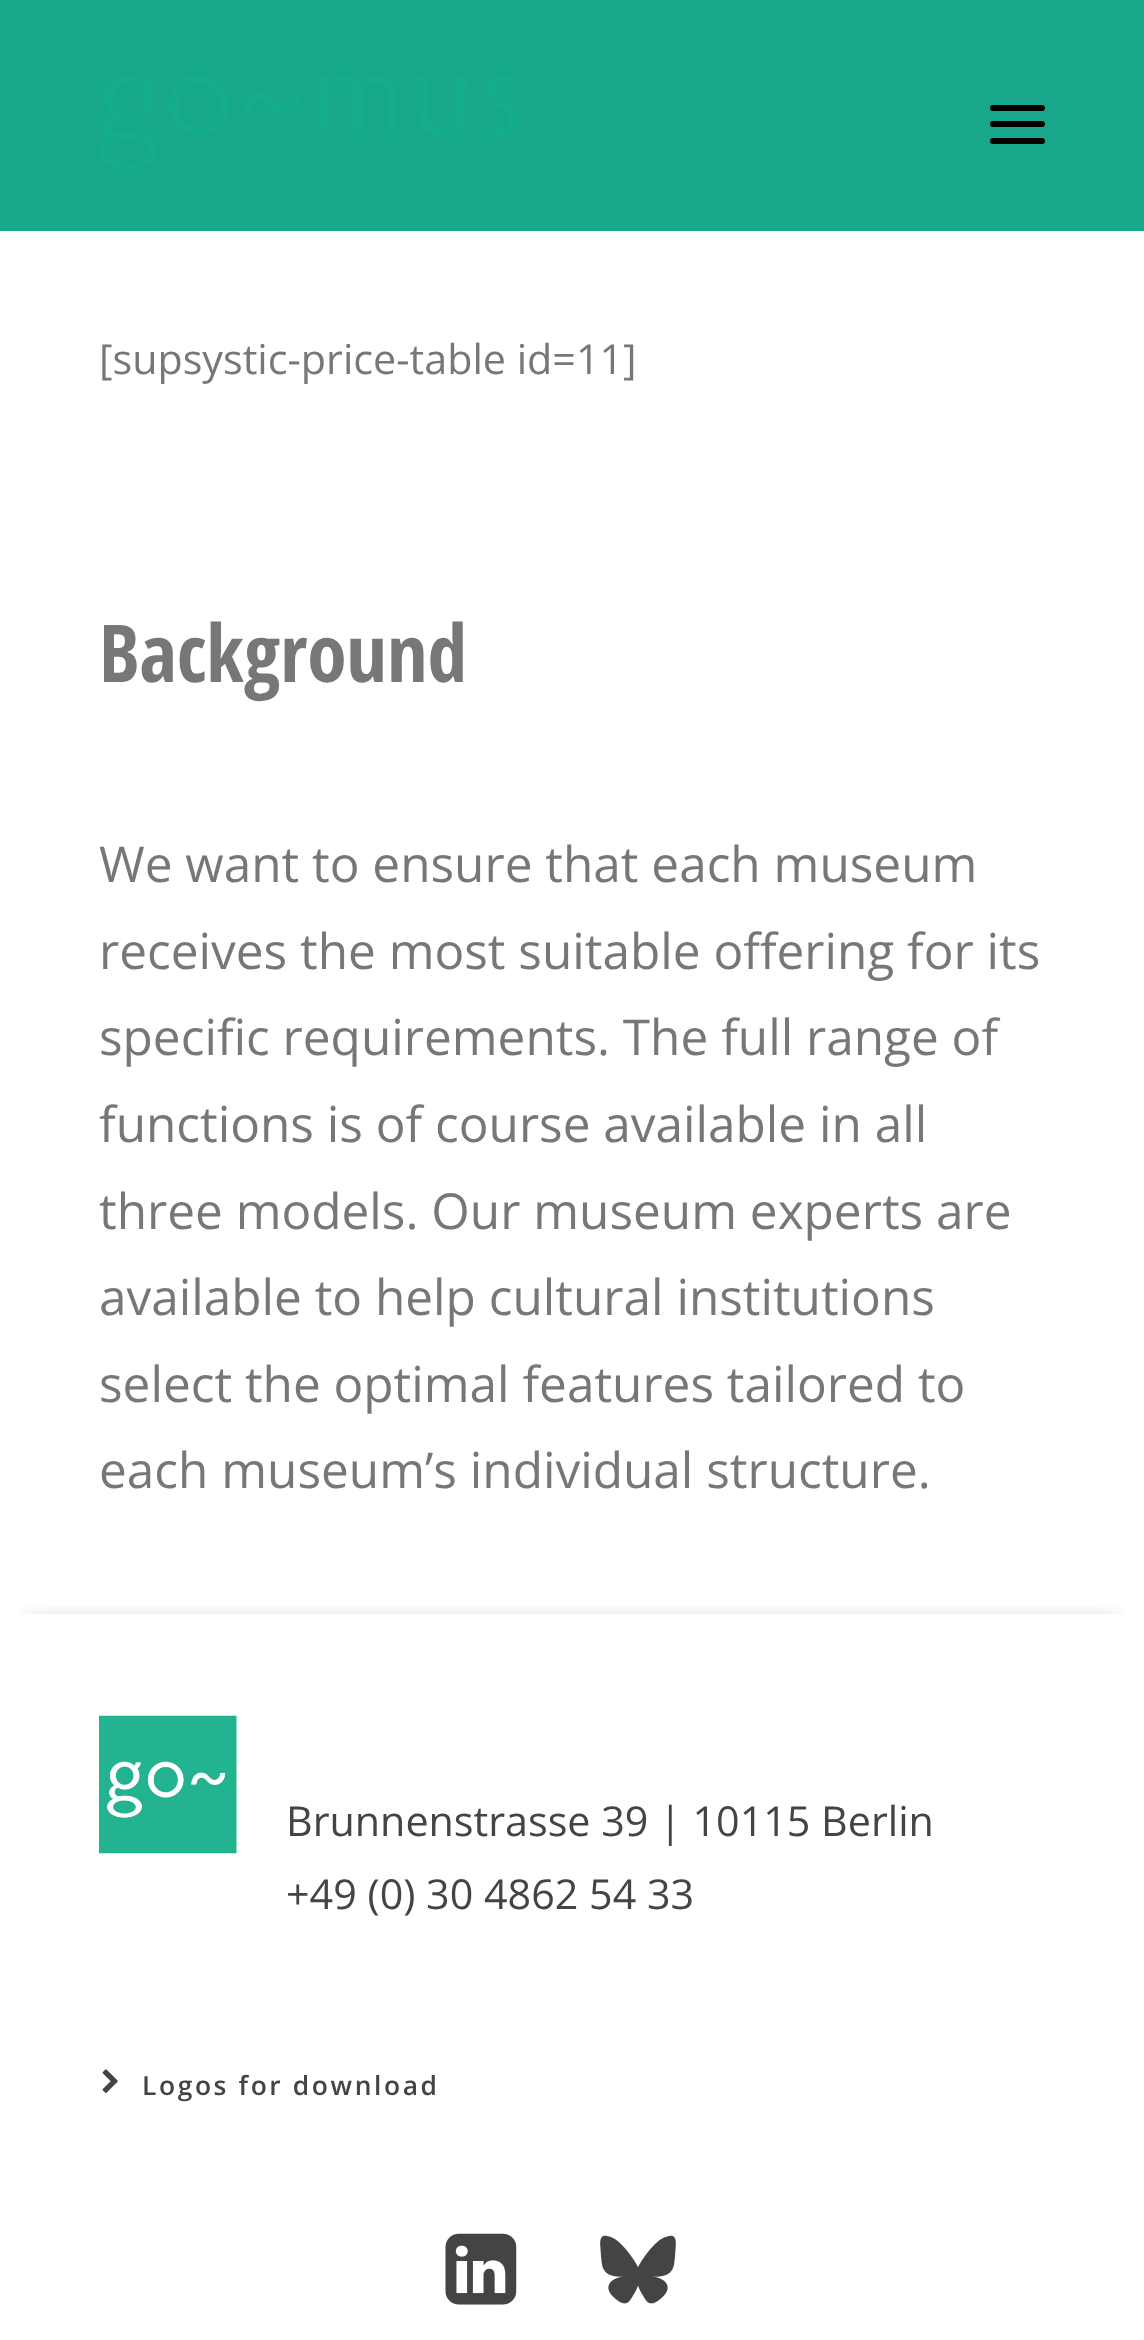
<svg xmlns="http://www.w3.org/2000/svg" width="1144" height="2340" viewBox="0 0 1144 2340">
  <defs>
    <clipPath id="clip1"><rect x="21" y="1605" width="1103" height="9"/></clipPath>
  </defs>
  <rect width="100%" height="100%" fill="rgb(255,255,255)"/>
  <rect x="0" y="0" width="1144" height="231" fill="rgb(23,167,138)"/>
  <image x="99" y="75" width="420" height="94" href="pic1.png"/>
  <rect x="990" y="121" width="55" height="6" rx="3" fill="rgb(0,0,0)"/>
  <rect x="990" y="105" width="55" height="6" rx="3" fill="rgb(0,0,0)"/>
  <rect x="990" y="138" width="55" height="6" rx="3" fill="rgb(0,0,0)"/>
  <text x="99" y="374" font-family="Open Sans" font-size="41.25" fill="rgb(119,119,119)">[supsystic-price-table id=11]</text>
  <text x="99" y="682" font-family="Open Sans Condensed" font-size="79.75" font-weight="bold" fill="rgb(119,119,119)">Background</text>
  <g font-family="Open Sans" font-size="49.5" fill="rgb(119,119,119)">
    <text>
      <tspan x="99" y="882">We want to ensure that each museum</tspan>
      <tspan x="99" y="969">receives the most suitable offering for its</tspan>
      <tspan x="99" y="1055">specific requirements. The full range of</tspan>
      <tspan x="99" y="1142">functions is of course available in all</tspan>
      <tspan x="99" y="1229">three models. Our museum experts are</tspan>
      <tspan x="99" y="1315">available to help cultural institutions</tspan>
      <tspan x="99" y="1402">select the optimal features tailored to</tspan>
      <tspan x="99" y="1488">each museum’s individual structure.</tspan>
    </text>
  </g>
  <g clip-path="url(#clip1)">
    <rect x="28" y="1631" width="1089" height="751" fill="rgba(0,0,0,0.6)" filter="blur(14px)"/>
  </g>
  <image x="99" y="1715" width="138" height="139" href="pic2.png"/>
  <g font-family="Open Sans" font-size="41.25" fill="rgb(68,68,68)">
    <text>
      <tspan x="286" y="1836">Brunnenstrasse 39 | 10115 Berlin</tspan>
      <tspan x="286" y="1909">+49 (0) 30 4862 54 33</tspan>
    </text>
  </g>
  <image x="102" y="2069" width="16" height="24" href="pic3.png"/>
  <text x="142" y="2095" font-family="Open Sans" font-size="26.4" font-weight="600" letter-spacing="2.6" fill="rgb(68,68,68)">Logos for download</text>
  <image x="445" y="2233" width="72" height="72" href="pic4.png"/>
  <image x="600" y="2235" width="76" height="69" href="pic5.png"/>
</svg>
